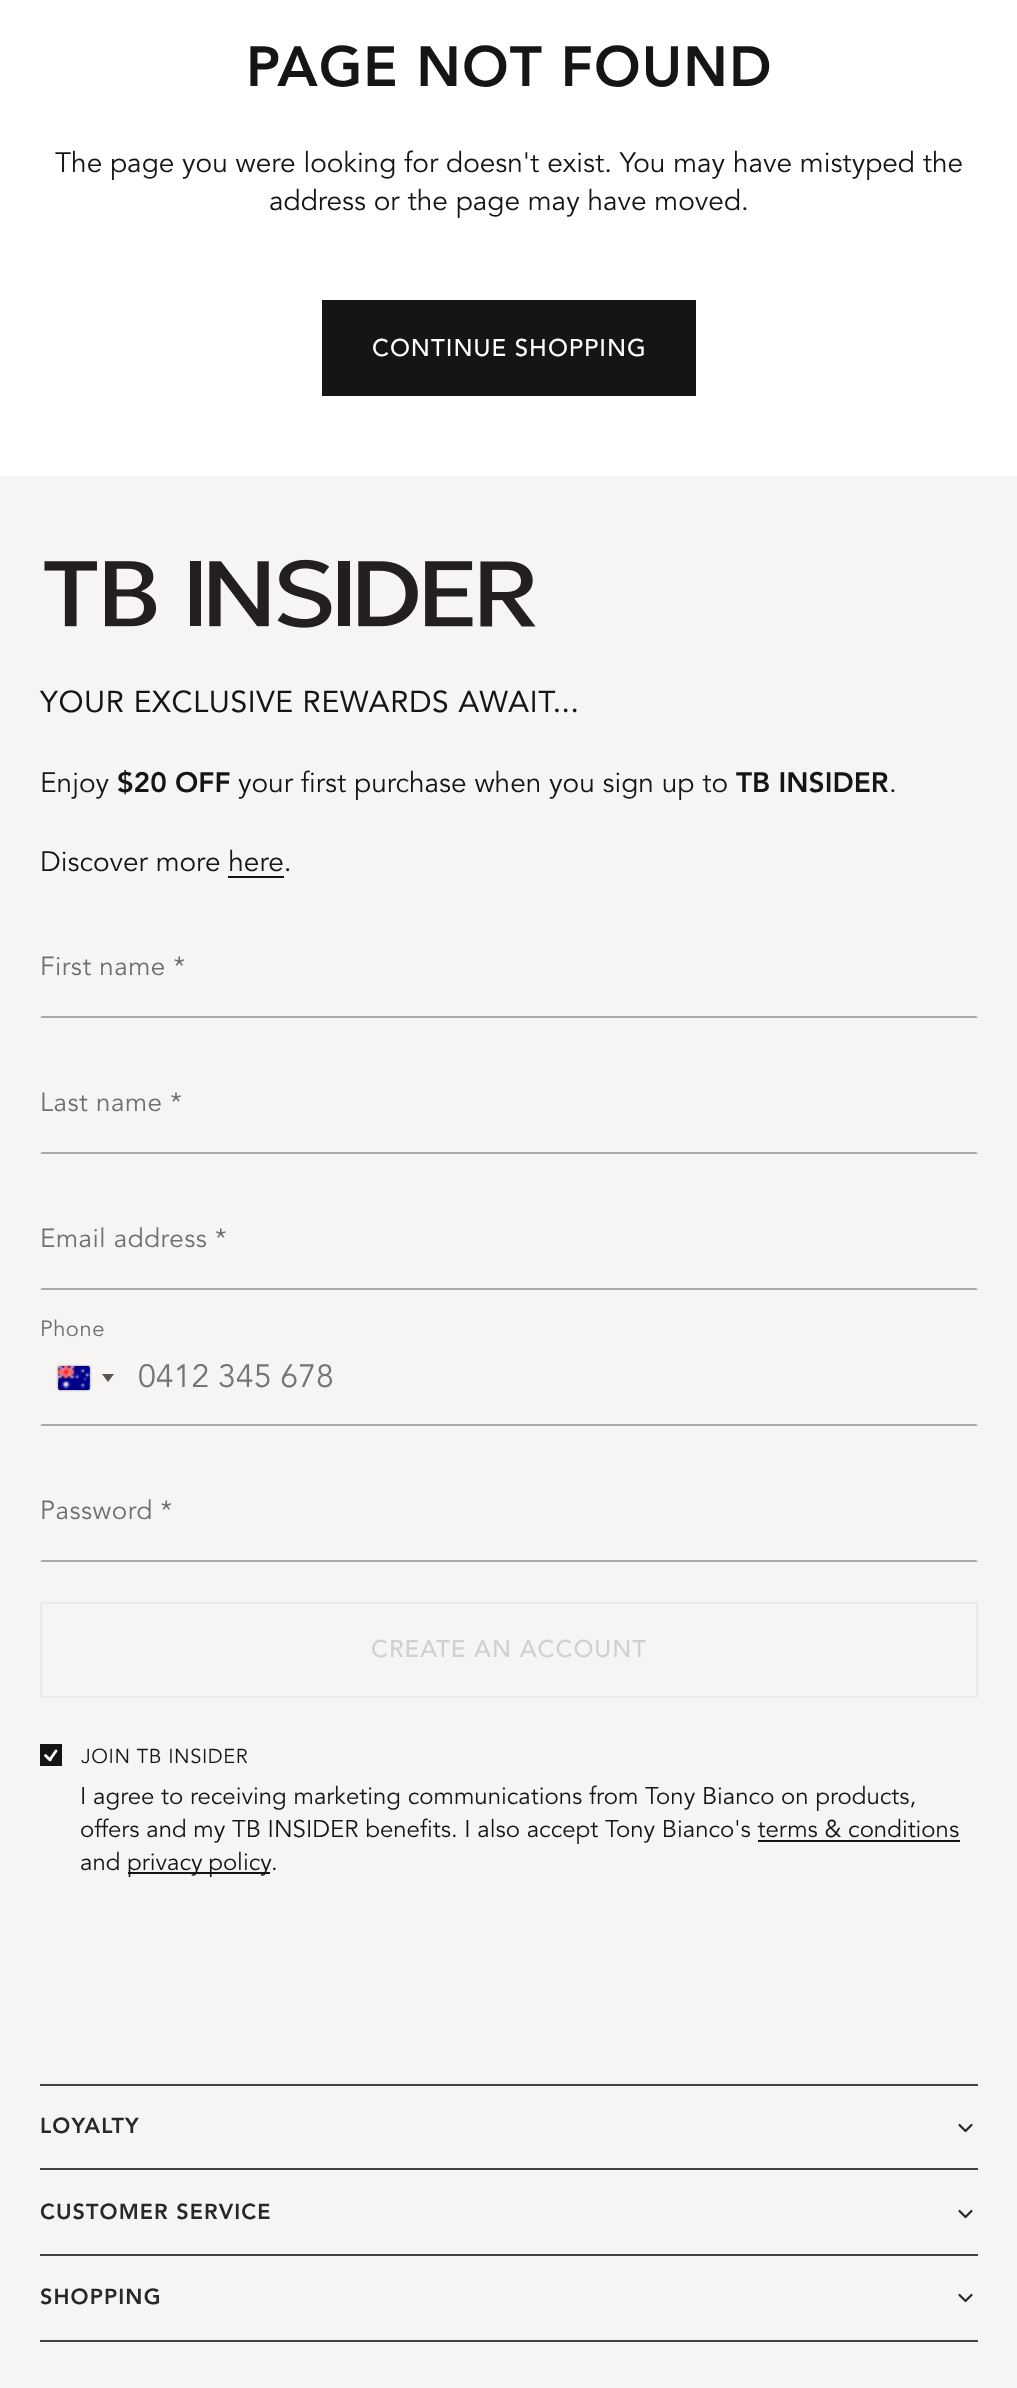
<svg xmlns="http://www.w3.org/2000/svg" width="1017" height="2388" viewBox="0 0 1017 2388">
  <rect width="100%" height="100%" fill="rgb(255,255,255)"/>
  <text x="246" y="86" font-family="Avenir" font-size="56" font-weight="900" letter-spacing="1.1" fill="rgb(21,21,21)">PAGE NOT FOUND</text>
  <g font-family="Avenir" font-size="28" fill="rgb(21,21,21)">
    <text x="55" y="172">The page you were looking for doesn't exist. You may have mistyped the</text>
    <text x="269" y="210">address or the page may have moved.</text>
  </g>
  <rect x="322" y="300" width="374" height="96" fill="rgb(21,21,21)"/>
  <text x="372" y="356" font-family="Avenir" font-size="24" font-weight="500" letter-spacing="1" fill="rgb(255,255,255)">CONTINUE SHOPPING</text>
  <rect x="0" y="476" width="1017" height="1912" fill="rgb(246,245,243)"/>
  <image x="44" y="559" width="492" height="69" href="pic1.png"/>
  <text x="40" y="712" font-family="'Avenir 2'" font-size="30" letter-spacing="0.6" fill="rgb(21,21,21)">YOUR EXCLUSIVE REWARDS AWAIT...</text>
  <text x="40" y="792" font-family="Avenir" font-size="28" fill="rgb(21,21,21)">Enjoy</text>
  <text x="117" y="792" font-family="Avenir" font-size="28" font-weight="900" fill="rgb(21,21,21)">$20 OFF</text>
  <text x="238" y="792" font-family="Avenir" font-size="28" fill="rgb(21,21,21)">your first purchase when you sign up to</text>
  <text x="736" y="792" font-family="Avenir" font-size="28" font-weight="900" fill="rgb(21,21,21)">TB INSIDER</text>
  <g font-family="Avenir" font-size="28" fill="rgb(21,21,21)">
    <text x="889" y="792">.</text>
    <text x="40" y="871">Discover more here.</text>
  </g>
  <rect x="228" y="876" width="56" height="2" fill="rgb(21,21,21)"/>
  <text x="40" y="975" font-family="Avenir" font-size="26" letter-spacing="0.5" fill="rgb(111,111,110)">First name *</text>
  <path d="M978 1018H40L42 1016H976Z" fill="rgb(170,170,170)"/>
  <text x="40" y="1111" font-family="Avenir" font-size="26" letter-spacing="0.5" fill="rgb(111,111,110)">Last name *</text>
  <path d="M978 1154H40L42 1152H976Z" fill="rgb(170,170,170)"/>
  <text x="40" y="1247" font-family="Avenir" font-size="26" letter-spacing="0.5" fill="rgb(111,111,110)">Email address *</text>
  <path d="M978 1290H40L42 1288H976Z" fill="rgb(170,170,170)"/>
  <text x="40" y="1336" font-family="Avenir" font-size="22" letter-spacing="0.5" fill="rgb(111,111,110)">Phone</text>
  <rect x="58" y="1366" width="32" height="24" rx="2" fill="rgb(136,136,136)" filter="blur(1px)"/>
  <image x="58" y="1366" width="32" height="24" href="pic2.png"/>
  <path d="M102 1374H114L108 1382Z" fill="rgb(85,85,85)"/>
  <path d="M978 1426H40L42 1424H976Z" fill="rgb(170,170,170)"/>
  <text x="138" y="1387" font-family="Avenir" font-size="32" fill="rgb(117,117,117)">0412 345 678</text>
  <text x="40" y="1519" font-family="Avenir" font-size="26" letter-spacing="0.5" fill="rgb(111,111,110)">Password *</text>
  <path d="M978 1562H40L42 1560H976Z" fill="rgb(170,170,170)"/>
  <rect x="40" y="1602" width="938" height="96" fill="rgb(235,234,233)"/>
  <rect x="42" y="1604" width="934" height="92" fill="rgb(246,245,243)"/>
  <text x="371" y="1657" font-family="Avenir" font-size="24" font-weight="500" letter-spacing="1" fill="rgb(208,208,207)">CREATE AN ACCOUNT</text>
  <rect x="40" y="1744" width="22" height="22" fill="rgb(21,21,21)"/>
  <path d="M56 1751L51 1758C50 1760 50.5 1760.5 49 1759L45.5 1755.5" fill="none" stroke="rgb(255,255,255)" stroke-width="2.8" stroke-linecap="round" stroke-linejoin="round"/>
  <text x="81" y="1763" font-family="Avenir" font-size="20" letter-spacing="0.6" fill="rgb(21,21,21)">JOIN TB INSIDER</text>
  <g font-family="Avenir" font-size="24" fill="rgb(21,21,21)">
    <text>
      <tspan x="80" y="1804">I agree to receiving marketing communications from Tony Bianco on products,</tspan>
      <tspan x="80" y="1837">offers and my TB INSIDER benefits. I also accept Tony Bianco's terms &amp; conditions</tspan>
    </text>
  </g>
  <rect x="758" y="1840" width="202" height="2" fill="rgb(21,21,21)"/>
  <text x="80" y="1870" font-family="Avenir" font-size="24" fill="rgb(21,21,21)">and</text>
  <rect x="128" y="1872" width="142" height="2" fill="rgb(21,21,21)"/>
  <g font-family="Avenir" font-size="24" fill="rgb(21,21,21)">
    <text x="127" y="1870" word-spacing="-1">privacy policy</text>
    <text x="271" y="1870">.</text>
  </g>
  <rect x="40" y="2084" width="938" height="2" fill="rgb(68,68,68)"/>
  <rect x="40" y="2168" width="938" height="2" fill="rgb(68,68,68)"/>
  <text x="40" y="2133" font-family="Avenir" font-size="21.6" font-weight="900" letter-spacing="1.1" fill="rgb(41,40,40)">LOYALTY</text>
  <path d="M971.5 2125L965.5 2131L959.5 2125" fill="none" stroke="rgb(41,40,40)" stroke-width="2.2" stroke-linecap="round" stroke-linejoin="round"/>
  <rect x="40" y="2254" width="938" height="2" fill="rgb(68,68,68)"/>
  <text x="40" y="2219" font-family="Avenir" font-size="21.6" font-weight="900" letter-spacing="1.1" fill="rgb(41,40,40)">CUSTOMER SERVICE</text>
  <path d="M971.5 2211L965.5 2217L959.5 2211" fill="none" stroke="rgb(41,40,40)" stroke-width="2.2" stroke-linecap="round" stroke-linejoin="round"/>
  <rect x="40" y="2340" width="938" height="2" fill="rgb(68,68,68)"/>
  <text x="40" y="2304" font-family="Avenir" font-size="21.6" font-weight="900" letter-spacing="1.1" fill="rgb(41,40,40)">SHOPPING</text>
  <path d="M971.5 2295L965.5 2301L959.5 2295" fill="none" stroke="rgb(41,40,40)" stroke-width="2.2" stroke-linecap="round" stroke-linejoin="round"/>
</svg>
